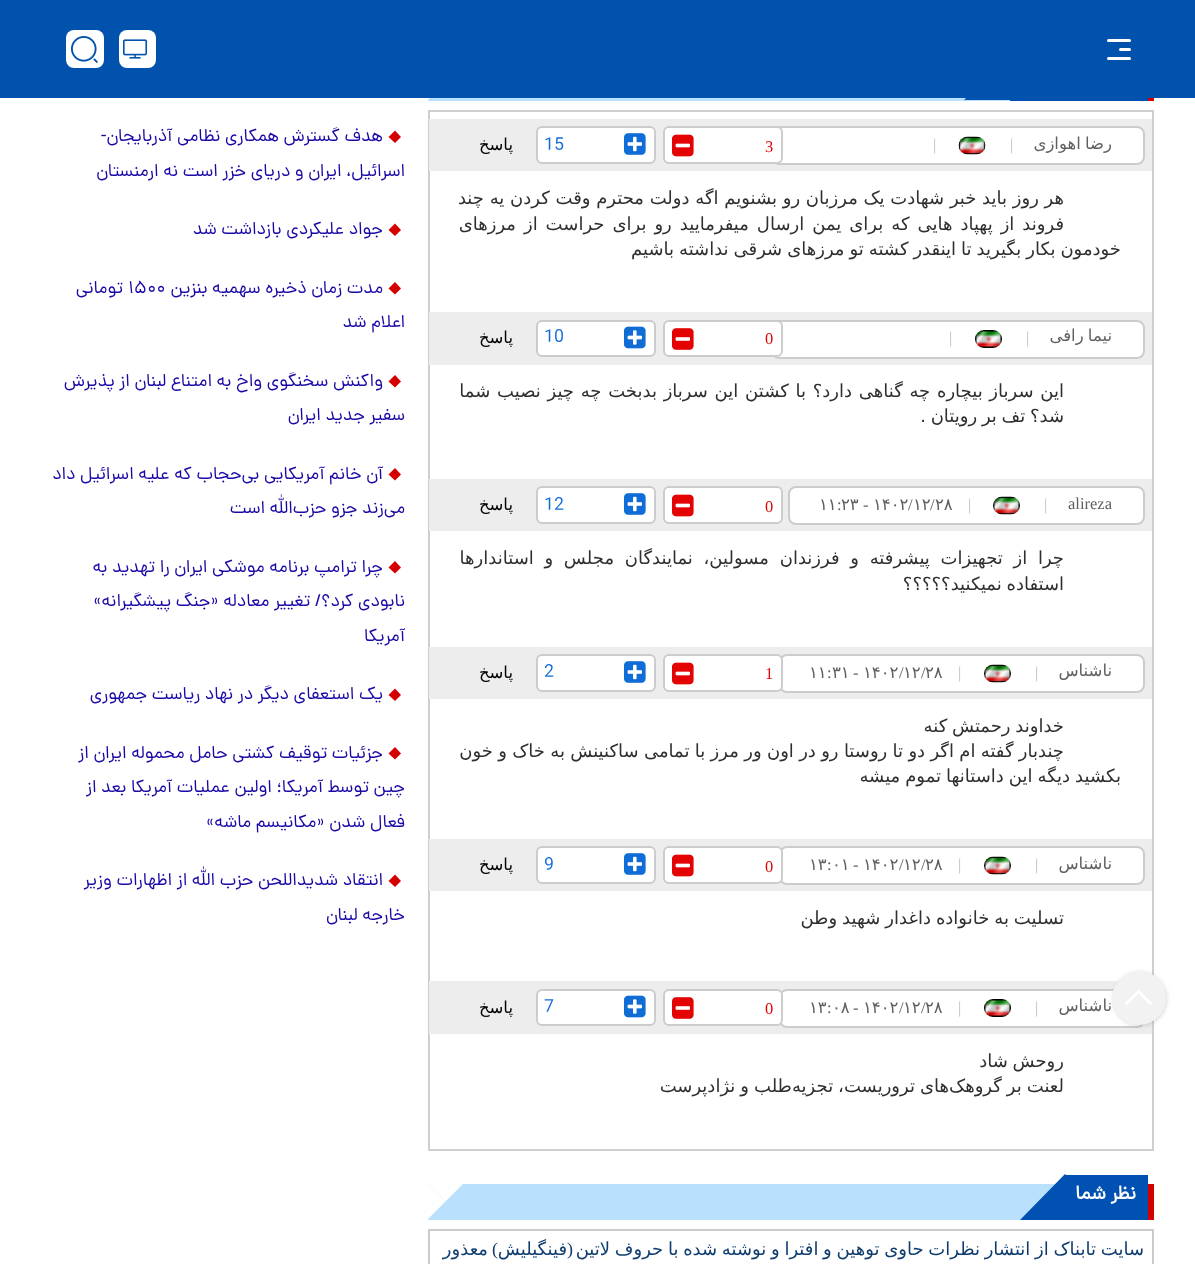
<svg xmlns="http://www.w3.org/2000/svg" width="1195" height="1264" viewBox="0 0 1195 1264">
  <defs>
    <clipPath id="clip1"><rect x="428" y="1166" width="726" height="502"/></clipPath>
  </defs>
  <rect width="100%" height="100%" fill="rgb(255,255,255)"/>
  <rect x="428" y="98" width="582" height="3" fill="rgb(185,224,253)"/>
  <rect x="1010" y="98" width="138" height="3" fill="rgb(1,81,178)"/>
  <path d="M1054 100H964L1010 56Z" fill="rgb(1,81,178)"/>
  <path d="M427.5 100.5V64.5L445.5 82.5Z" fill="rgb(255,255,255)"/>
  <rect x="0" y="0" width="1195" height="98" fill="rgb(1,82,173)"/>
  <rect x="1107" y="39" width="24" height="3" rx="1.5" fill="rgb(255,255,255)"/>
  <rect x="1119" y="48" width="12" height="3" rx="1.5" fill="rgb(255,255,255)"/>
  <rect x="1107" y="57" width="24" height="3" rx="1.5" fill="rgb(255,255,255)"/>
  <rect x="119" y="30" width="37" height="38" rx="8" fill="rgb(255,255,255)"/>
  <image x="123" y="39" width="25" height="20" href="pic1.png"/>
  <rect x="66" y="30" width="38" height="38" rx="8" fill="rgb(255,255,255)"/>
  <image x="70" y="36" width="28" height="27" href="pic2.png"/>
  <rect x="429" y="111" width="724" height="1039" fill="none" stroke="rgb(207,207,207)" stroke-width="2"/>
  <rect x="429" y="981" width="723" height="53" fill="rgb(237,237,237)"/>
  <rect x="780" y="990" width="364" height="37" rx="7" fill="rgb(255,255,255)" stroke="rgb(204,204,204)" stroke-width="2"/>
  <rect x="1113" y="972" width="54" height="54" rx="27" fill="rgba(120,120,120,0.27)" filter="blur(2px)"/>
  <circle cx="1139" cy="998" r="27" fill="rgb(242,242,242)"/>
  <path d="M1126.5 1003.5L1138.5 991.5L1150.5 1003.5" fill="none" stroke="rgb(255,255,255)" stroke-width="3" stroke-linecap="round" stroke-linejoin="round"/>
  <rect x="1148" y="98" width="6" height="3" fill="rgb(212,0,0)"/>
  <rect x="429" y="119" width="723" height="52" fill="rgb(237,237,237)"/>
  <rect x="772" y="127" width="372" height="37" rx="7" fill="rgb(255,255,255)" stroke="rgb(204,204,204)" stroke-width="2"/>
  <text x="1112" y="149" word-spacing="-1" font-family="DejaVu Sans" font-size="16.5" direction="rtl" fill="rgb(95,95,95)">رضا اهوازی</text>
  <text x="1010" y="150" font-family="Liberation Serif" font-size="16.5" fill="rgb(192,192,192)">|</text>
  <image x="958" y="136" width="28" height="19" href="pic3.png"/>
  <text x="933" y="150" font-family="Liberation Serif" font-size="16.5" fill="rgb(192,192,192)">|</text>
  <rect x="664" y="127" width="118" height="36" rx="5" fill="rgb(255,255,255)" stroke="rgb(204,204,204)" stroke-width="2"/>
  <text x="765" y="152" font-family="Liberation Serif" font-size="16.5" fill="rgb(227,3,3)">3</text>
  <image x="672" y="134" width="22" height="23" href="pic4.png"/>
  <rect x="537" y="127" width="118" height="36" rx="5" fill="rgb(255,255,255)" stroke="rgb(204,204,204)" stroke-width="2"/>
  <image x="624" y="133" width="22" height="22" href="pic5.png"/>
  <text x="544" y="149" font-family="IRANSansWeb" font-size="16.5" fill="rgb(17,109,214)">15</text>
  <text x="513" y="150" font-family="DejaVu Sans" font-size="16.5" direction="rtl" fill="rgb(0,0,0)">پاسخ</text>
  <g font-family="DejaVu Sans" font-size="18" direction="rtl" fill="rgb(47,47,47)">
    <text>
      <tspan x="1064" y="204">هر روز باید خبر شهادت یک مرزبان رو بشنویم اگه دولت محترم وقت کردن یه چند</tspan>
      <tspan x="1064" y="230" word-spacing="2.25">فروند از پهپاد هایی که برای یمن ارسال میفرمایید رو برای حراست از مرزهای</tspan>
    </text>
    <text x="1121" y="255" word-spacing="-0.75">خودمون بکار بگیرید تا اینقدر کشته تو مرزهای شرقی نداشته باشیم</text>
  </g>
  <rect x="429" y="312" width="723" height="53" fill="rgb(237,237,237)"/>
  <rect x="772" y="321" width="372" height="37" rx="7" fill="rgb(255,255,255)" stroke="rgb(204,204,204)" stroke-width="2"/>
  <text x="1112" y="341" word-spacing="-1" font-family="DejaVu Sans" font-size="16.5" direction="rtl" fill="rgb(95,95,95)">نیما رافی</text>
  <text x="1026" y="343" font-family="Liberation Serif" font-size="16.5" fill="rgb(192,192,192)">|</text>
  <image x="975" y="330" width="27" height="18" href="pic6.png"/>
  <text x="949" y="343" font-family="Liberation Serif" font-size="16.5" fill="rgb(192,192,192)">|</text>
  <rect x="664" y="321" width="118" height="35" rx="5" fill="rgb(255,255,255)" stroke="rgb(204,204,204)" stroke-width="2"/>
  <text x="765" y="344" font-family="Liberation Serif" font-size="16.5" fill="rgb(227,3,3)">0</text>
  <image x="672" y="328" width="22" height="22" href="pic7.png"/>
  <rect x="537" y="321" width="118" height="35" rx="5" fill="rgb(255,255,255)" stroke="rgb(204,204,204)" stroke-width="2"/>
  <image x="624" y="326" width="22" height="23" href="pic8.png"/>
  <text x="544" y="341" font-family="IRANSansWeb" font-size="16.5" fill="rgb(17,109,214)">10</text>
  <text x="513" y="343" font-family="DejaVu Sans" font-size="16.5" direction="rtl" fill="rgb(0,0,0)">پاسخ</text>
  <g font-family="DejaVu Sans" font-size="18" direction="rtl" fill="rgb(47,47,47)">
    <text x="1064" y="397" word-spacing="1">این سرباز بیچاره چه گناهی دارد؟</text>
    <text x="806" y="397" word-spacing="1">با کشتن این سرباز بدبخت چه چیز نصیب شما</text>
    <text x="1064" y="422" word-spacing="-1">شد؟ تف بر رویتان .</text>
  </g>
  <rect x="429" y="479" width="723" height="52" fill="rgb(237,237,237)"/>
  <rect x="789" y="487" width="355" height="37" rx="7" fill="rgb(255,255,255)" stroke="rgb(204,204,204)" stroke-width="2"/>
  <text x="1068" y="509" font-family="Liberation Serif" font-size="16.5" fill="rgb(95,95,95)">alireza</text>
  <text x="1044" y="510" font-family="Liberation Serif" font-size="16.5" fill="rgb(192,192,192)">|</text>
  <image x="993" y="496" width="27" height="19" href="pic9.png"/>
  <text x="968" y="510" font-family="Liberation Serif" font-size="16.5" fill="rgb(192,192,192)">|</text>
  <text x="930" y="510" font-family="Liberation Serif" font-size="16.5" fill="rgb(95,95,95)">/</text>
  <g font-family="DejaVu Sans" font-size="16.5" fill="rgb(95,95,95)">
    <text x="935" y="510">۲۸</text>
    <text x="913" y="510">۱۲</text>
  </g>
  <text x="908" y="510" font-family="Liberation Serif" font-size="16.5" fill="rgb(95,95,95)">/</text>
  <text x="873" y="510" font-family="DejaVu Sans" font-size="16.5" fill="rgb(95,95,95)">۱۴۰۲</text>
  <text x="863" y="510" font-family="Liberation Serif" font-size="16.5" fill="rgb(95,95,95)">-</text>
  <text x="841" y="510" font-family="DejaVu Sans" font-size="16.5" fill="rgb(95,95,95)">۲۳</text>
  <text x="837" y="510" font-family="Liberation Serif" font-size="16.5" fill="rgb(95,95,95)">:</text>
  <text x="819" y="510" font-family="DejaVu Sans" font-size="16.5" fill="rgb(95,95,95)">۱۱</text>
  <rect x="664" y="487" width="118" height="36" rx="5" fill="rgb(255,255,255)" stroke="rgb(204,204,204)" stroke-width="2"/>
  <text x="765" y="512" font-family="Liberation Serif" font-size="16.5" fill="rgb(227,3,3)">0</text>
  <image x="672" y="494" width="22" height="23" href="pic4.png"/>
  <rect x="537" y="487" width="118" height="36" rx="5" fill="rgb(255,255,255)" stroke="rgb(204,204,204)" stroke-width="2"/>
  <image x="624" y="493" width="22" height="22" href="pic5.png"/>
  <text x="544" y="509" font-family="IRANSansWeb" font-size="16.5" fill="rgb(17,109,214)">12</text>
  <text x="513" y="510" font-family="DejaVu Sans" font-size="16.5" direction="rtl" fill="rgb(0,0,0)">پاسخ</text>
  <g font-family="DejaVu Sans" font-size="18" direction="rtl" fill="rgb(47,47,47)">
    <text>
      <tspan x="1064" y="564" word-spacing="5">چرا از تجهیزات پیشرفته و فرزندان مسولین، نمایندگان مجلس و استاندارها</tspan>
      <tspan x="1064" y="590" word-spacing="-1">استفاده نمیکنید؟؟؟؟؟</tspan>
    </text>
  </g>
  <rect x="429" y="647" width="723" height="52" fill="rgb(237,237,237)"/>
  <rect x="780" y="655" width="364" height="37" rx="7" fill="rgb(255,255,255)" stroke="rgb(204,204,204)" stroke-width="2"/>
  <text x="1112" y="676" font-family="DejaVu Sans" font-size="16.5" direction="rtl" fill="rgb(95,95,95)">ناشناس</text>
  <text x="1035" y="678" font-family="Liberation Serif" font-size="16.5" fill="rgb(192,192,192)">|</text>
  <image x="984" y="664" width="27" height="19" href="pic10.png"/>
  <text x="958" y="678" font-family="Liberation Serif" font-size="16.5" fill="rgb(192,192,192)">|</text>
  <g font-family="DejaVu Sans" font-size="16.5" fill="rgb(95,95,95)">
    <text x="925" y="678">۲۸</text>
    <text x="903" y="678">۱۲</text>
  </g>
  <g font-family="Liberation Serif" font-size="16.5" fill="rgb(95,95,95)">
    <text x="921" y="678">/</text>
    <text x="899" y="678">/</text>
  </g>
  <text x="863" y="678" font-family="DejaVu Sans" font-size="16.5" fill="rgb(95,95,95)">۱۴۰۲</text>
  <text x="853" y="678" font-family="Liberation Serif" font-size="16.5" fill="rgb(95,95,95)">-</text>
  <text x="832" y="678" font-family="DejaVu Sans" font-size="16.5" fill="rgb(95,95,95)">۳۱</text>
  <text x="827" y="678" font-family="Liberation Serif" font-size="16.5" fill="rgb(95,95,95)">:</text>
  <text x="809" y="678" font-family="DejaVu Sans" font-size="16.5" fill="rgb(95,95,95)">۱۱</text>
  <rect x="664" y="655" width="118" height="36" rx="5" fill="rgb(255,255,255)" stroke="rgb(204,204,204)" stroke-width="2"/>
  <text x="765" y="679" font-family="Liberation Serif" font-size="16.5" fill="rgb(227,3,3)">1</text>
  <image x="672" y="662" width="22" height="23" href="pic4.png"/>
  <rect x="537" y="655" width="118" height="36" rx="5" fill="rgb(255,255,255)" stroke="rgb(204,204,204)" stroke-width="2"/>
  <image x="624" y="661" width="22" height="22" href="pic5.png"/>
  <text x="544" y="676" font-family="IRANSansWeb" font-size="16.5" fill="rgb(17,109,214)">2</text>
  <text x="513" y="678" font-family="DejaVu Sans" font-size="16.5" direction="rtl" fill="rgb(0,0,0)">پاسخ</text>
  <g font-family="DejaVu Sans" font-size="18" direction="rtl" fill="rgb(47,47,47)">
    <text>
      <tspan x="1064" y="732" word-spacing="-1">خداوند رحمتش کنه</tspan>
      <tspan x="1064" y="757" word-spacing="-0.4">چندبار گفته ام اگر دو تا روستا رو در اون ور مرز با تمامی ساکنینش به خاک و خون</tspan>
    </text>
    <text x="1121" y="782" word-spacing="-0.75">بکشید دیگه این داستانها تموم میشه</text>
  </g>
  <rect x="429" y="839" width="723" height="52" fill="rgb(237,237,237)"/>
  <rect x="780" y="847" width="364" height="37" rx="7" fill="rgb(255,255,255)" stroke="rgb(204,204,204)" stroke-width="2"/>
  <text x="1112" y="869" font-family="DejaVu Sans" font-size="16.5" direction="rtl" fill="rgb(95,95,95)">ناشناس</text>
  <text x="1035" y="870" font-family="Liberation Serif" font-size="16.5" fill="rgb(192,192,192)">|</text>
  <image x="984" y="856" width="27" height="19" href="pic10.png"/>
  <text x="958" y="870" font-family="Liberation Serif" font-size="16.5" fill="rgb(192,192,192)">|</text>
  <g font-family="DejaVu Sans" font-size="16.5" fill="rgb(95,95,95)">
    <text x="925" y="870">۲۸</text>
    <text x="903" y="870">۱۲</text>
  </g>
  <g font-family="Liberation Serif" font-size="16.5" fill="rgb(95,95,95)">
    <text x="921" y="870">/</text>
    <text x="899" y="870">/</text>
  </g>
  <text x="863" y="870" font-family="DejaVu Sans" font-size="16.5" fill="rgb(95,95,95)">۱۴۰۲</text>
  <text x="853" y="870" font-family="Liberation Serif" font-size="16.5" fill="rgb(95,95,95)">-</text>
  <text x="832" y="870" font-family="DejaVu Sans" font-size="16.5" fill="rgb(95,95,95)">۰۱</text>
  <text x="827" y="870" font-family="Liberation Serif" font-size="16.5" fill="rgb(95,95,95)">:</text>
  <text x="809" y="870" font-family="DejaVu Sans" font-size="16.5" fill="rgb(95,95,95)">۱۳</text>
  <rect x="664" y="847" width="118" height="36" rx="5" fill="rgb(255,255,255)" stroke="rgb(204,204,204)" stroke-width="2"/>
  <text x="765" y="872" font-family="Liberation Serif" font-size="16.5" fill="rgb(227,3,3)">0</text>
  <image x="672" y="854" width="22" height="23" href="pic4.png"/>
  <rect x="537" y="847" width="118" height="36" rx="5" fill="rgb(255,255,255)" stroke="rgb(204,204,204)" stroke-width="2"/>
  <image x="624" y="853" width="22" height="22" href="pic5.png"/>
  <text x="544" y="869" font-family="IRANSansWeb" font-size="16.5" fill="rgb(17,109,214)">9</text>
  <text x="513" y="870" font-family="DejaVu Sans" font-size="16.5" direction="rtl" fill="rgb(0,0,0)">پاسخ</text>
  <text x="1064" y="924" word-spacing="-0.75" font-family="DejaVu Sans" font-size="18" direction="rtl" fill="rgb(47,47,47)">تسلیت به خانواده داغدار شهید وطن</text>
  <text x="1112" y="1011" font-family="DejaVu Sans" font-size="16.5" direction="rtl" fill="rgb(95,95,95)">ناشناس</text>
  <text x="1035" y="1013" font-family="Liberation Serif" font-size="16.5" fill="rgb(192,192,192)">|</text>
  <image x="984" y="999" width="27" height="18" href="pic11.png"/>
  <text x="958" y="1013" font-family="Liberation Serif" font-size="16.5" fill="rgb(192,192,192)">|</text>
  <g font-family="DejaVu Sans" font-size="16.5" fill="rgb(95,95,95)">
    <text x="925" y="1013">۲۸</text>
    <text x="903" y="1013">۱۲</text>
  </g>
  <g font-family="Liberation Serif" font-size="16.5" fill="rgb(95,95,95)">
    <text x="921" y="1013">/</text>
    <text x="899" y="1013">/</text>
  </g>
  <text x="863" y="1013" font-family="DejaVu Sans" font-size="16.5" fill="rgb(95,95,95)">۱۴۰۲</text>
  <text x="853" y="1013" font-family="Liberation Serif" font-size="16.5" fill="rgb(95,95,95)">-</text>
  <text x="832" y="1013" font-family="DejaVu Sans" font-size="16.5" fill="rgb(95,95,95)">۰۸</text>
  <text x="827" y="1013" font-family="Liberation Serif" font-size="16.5" fill="rgb(95,95,95)">:</text>
  <text x="809" y="1013" font-family="DejaVu Sans" font-size="16.5" fill="rgb(95,95,95)">۱۳</text>
  <rect x="664" y="990" width="118" height="35" rx="5" fill="rgb(255,255,255)" stroke="rgb(204,204,204)" stroke-width="2"/>
  <text x="765" y="1014" font-family="Liberation Serif" font-size="16.5" fill="rgb(227,3,3)">0</text>
  <image x="672" y="997" width="22" height="22" href="pic7.png"/>
  <rect x="537" y="990" width="118" height="35" rx="5" fill="rgb(255,255,255)" stroke="rgb(204,204,204)" stroke-width="2"/>
  <image x="624" y="995" width="22" height="23" href="pic8.png"/>
  <text x="544" y="1011" font-family="IRANSansWeb" font-size="16.5" fill="rgb(17,109,214)">7</text>
  <text x="513" y="1013" font-family="DejaVu Sans" font-size="16.5" direction="rtl" fill="rgb(0,0,0)">پاسخ</text>
  <g font-family="DejaVu Sans" font-size="18" direction="rtl" fill="rgb(47,47,47)">
    <text>
      <tspan x="1064" y="1067" word-spacing="-1">روحش شاد</tspan>
      <tspan x="1064" y="1092" word-spacing="-0.75">لعنت بر گروهک‌های تروریست، تجزیه‌طلب و نژادپرست</tspan>
    </text>
  </g>
  <rect x="428" y="1184" width="628" height="36" fill="rgb(185,224,253)"/>
  <rect x="1148" y="1184" width="6" height="36" fill="rgb(212,0,0)"/>
  <rect x="1066" y="1175" width="82" height="45" fill="rgb(1,81,178)"/>
  <path d="M1110 1220H1020L1065 1174Z" fill="rgb(1,81,178)"/>
  <text x="1136" y="1199" font-family="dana" font-size="19.5" font-weight="bold" direction="rtl" fill="rgb(255,255,255)">نظر شما</text>
  <path d="M427.5 1183.5H463.5L445.5 1201.5Z" fill="rgb(255,255,255)"/>
  <g clip-path="url(#clip1)">
    <path d="M427.5 1219.5V1183.5L445.5 1201.5Z" fill="rgb(255,255,255)"/>
  </g>
  <rect x="429" y="1230" width="724" height="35" fill="none" stroke="rgb(204,204,204)" stroke-width="2"/>
  <text x="1144" y="1255" word-spacing="-1" font-family="DejaVu Sans" font-size="18" direction="rtl" fill="rgb(15,61,111)">سایت تابناک از انتشار نظرات حاوی توهین و افترا و نوشته شده با حروف لاتین</text>
  <text x="573" y="1255" font-family="Liberation Serif" font-size="18" direction="rtl" fill="rgb(15,61,111)">(</text>
  <text x="567" y="1255" font-family="DejaVu Sans" font-size="18" direction="rtl" fill="rgb(15,61,111)">فینگیلیش</text>
  <text x="498" y="1255" font-family="Liberation Serif" font-size="18" direction="rtl" fill="rgb(15,61,111)">)</text>
  <text x="488" y="1255" font-family="DejaVu Sans" font-size="18" direction="rtl" fill="rgb(15,61,111)">معذور</text>
  <path d="M395 130.5L401 137L395 143L388.5 137Z" fill="rgb(212,0,0)"/>
  <g font-family="dana" font-size="18" direction="rtl" fill="rgb(24,9,166)">
    <text x="383" y="141">هدف گسترش همکاری نظامی آذربایجان-</text>
    <text x="405" y="176">اسرائیل، ایران و دریای خزر است نه ارمنستان</text>
  </g>
  <path d="M395 223.5L401 230L395 236L388.5 230Z" fill="rgb(212,0,0)"/>
  <text x="383" y="234" font-family="dana" font-size="18" direction="rtl" fill="rgb(24,9,166)">جواد علیکردی بازداشت شد</text>
  <path d="M395 282L401 288.5L395 294.5L388.5 288.5Z" fill="rgb(212,0,0)"/>
  <text x="383" y="293" font-family="dana" font-size="18" direction="rtl" fill="rgb(24,9,166)">مدت زمان ذخیره سهمیه بنزین</text>
  <text x="128" y="293" font-family="dana" font-size="18" fill="rgb(24,9,166)">۱۵۰۰</text>
  <g font-family="dana" font-size="18" direction="rtl" fill="rgb(24,9,166)">
    <text x="123" y="293">تومانی</text>
    <text x="405" y="327">اعلام شد</text>
  </g>
  <path d="M395 375L401 381.5L395 387.5L388.5 381.5Z" fill="rgb(212,0,0)"/>
  <g font-family="dana" font-size="18" direction="rtl" fill="rgb(24,9,166)">
    <text x="383" y="386">واکنش سخنگوی واخ به امتناع لبنان از پذیرش</text>
    <text x="405" y="420">سفیر جدید ایران</text>
  </g>
  <path d="M395 468L401 474.5L395 480.5L388.5 474.5Z" fill="rgb(212,0,0)"/>
  <g font-family="dana" font-size="18" direction="rtl" fill="rgb(24,9,166)">
    <text x="383" y="479">آن خانم آمریکایی بی‌حجاب که علیه اسرائیل داد</text>
    <text x="405" y="513">می‌زند جزو حزب‌الله است</text>
  </g>
  <path d="M395 561L401 567.5L395 573.5L388.5 567.5Z" fill="rgb(212,0,0)"/>
  <g font-family="dana" font-size="18" direction="rtl" fill="rgb(24,9,166)">
    <text x="383" y="572">چرا ترامپ برنامه موشکی ایران را تهدید به</text>
    <text>
      <tspan x="405" y="606">نابودی کرد؟/ تغییر معادله «جنگ پیشگیرانه»</tspan>
      <tspan x="405" y="641">آمریکا</tspan>
    </text>
  </g>
  <path d="M395 688.5L401 695L395 701L388.5 695Z" fill="rgb(212,0,0)"/>
  <text x="383" y="699" font-family="dana" font-size="18" direction="rtl" fill="rgb(24,9,166)">یک استعفای دیگر در نهاد ریاست جمهوری</text>
  <path d="M395 747L401 753.5L395 759.5L388.5 753.5Z" fill="rgb(212,0,0)"/>
  <g font-family="dana" font-size="18" direction="rtl" fill="rgb(24,9,166)">
    <text x="383" y="758">جزئیات توقیف کشتی حامل محموله ایران از</text>
    <text>
      <tspan x="405" y="792">چین توسط آمریکا؛ اولین عملیات آمریکا بعد از</tspan>
      <tspan x="405" y="827">فعال شدن «مکانیسم ماشه»</tspan>
    </text>
  </g>
  <path d="M395 874.5L401 881L395 887L388.5 881Z" fill="rgb(212,0,0)"/>
  <g font-family="dana" font-size="18" direction="rtl" fill="rgb(24,9,166)">
    <text x="383" y="885">انتقاد شدیداللحن حزب الله از اظهارات وزیر</text>
    <text x="405" y="920">خارجه لبنان</text>
  </g>
</svg>
